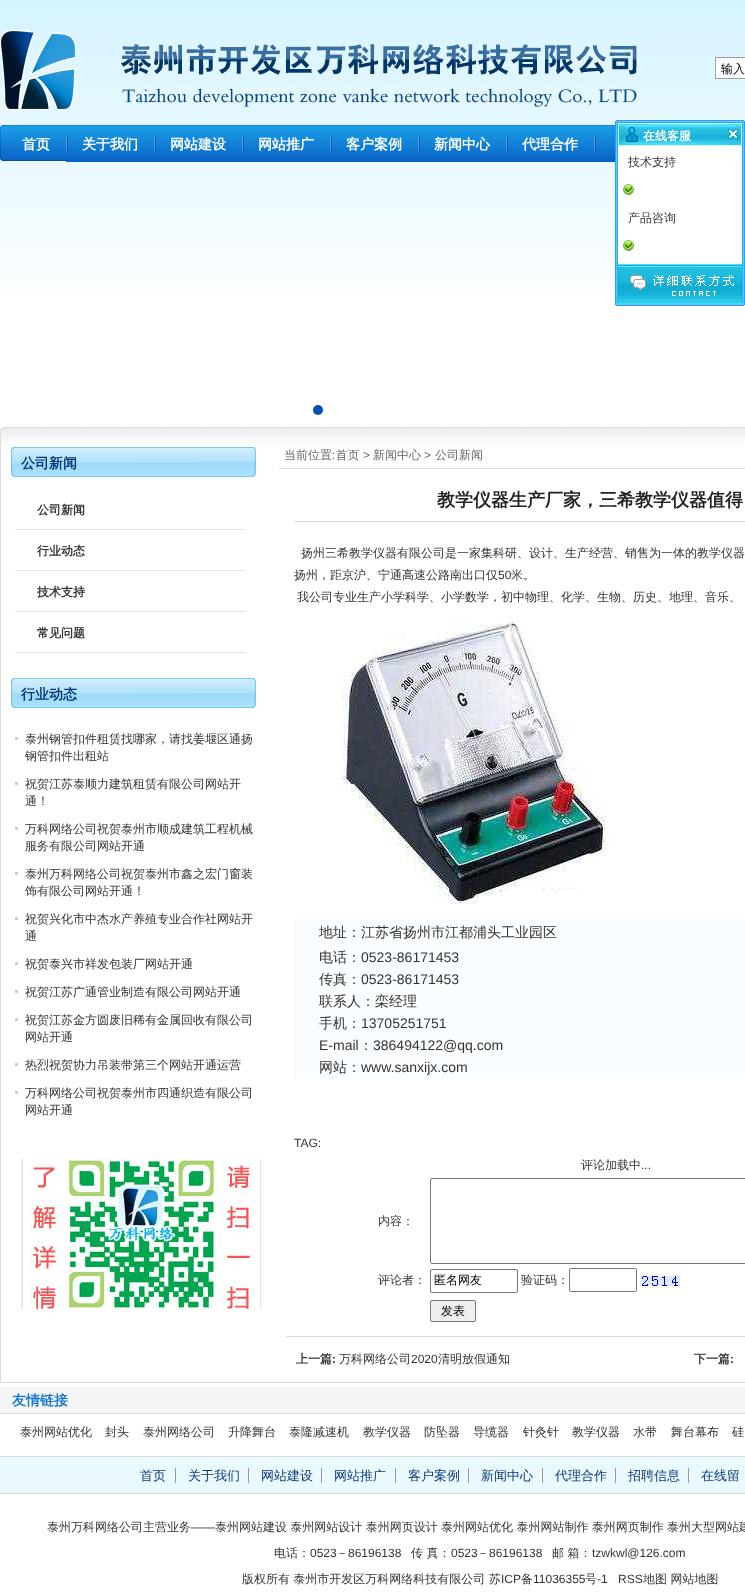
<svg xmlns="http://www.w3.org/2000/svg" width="745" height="1592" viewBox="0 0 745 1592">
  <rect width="100%" height="100%" fill="rgb(255,255,255)"/>
  <image x="0" y="0" width="745" height="290" href="pic1.png"/>
  <image x="0" y="30" width="637" height="80" href="pic2.png"/>
  <rect x="715.5" y="57.5" width="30" height="21" fill="rgb(255,255,255)" stroke="rgb(160,160,160)"/>
  <text x="721" y="73" font-family="WenQuanYi Zen Hei" font-size="12" font-weight="500" fill="rgb(0,0,0)">输入</text>
  <image x="0" y="125" width="615" height="36" href="pic3.png"/>
  <text x="22" y="149" font-family="WenQuanYi Zen Hei" font-size="14" font-weight="bold" fill="rgb(255,255,255)">首页</text>
  <image x="66" y="136" width="88" height="26" href="pic4.png"/>
  <text x="82" y="149" font-family="WenQuanYi Zen Hei" font-size="14" font-weight="bold" fill="rgb(255,255,255)">关于我们</text>
  <image x="154" y="136" width="88" height="26" href="pic4.png"/>
  <text x="170" y="149" font-family="WenQuanYi Zen Hei" font-size="14" font-weight="bold" fill="rgb(255,255,255)">网站建设</text>
  <image x="242" y="136" width="88" height="26" href="pic4.png"/>
  <text x="258" y="149" font-family="WenQuanYi Zen Hei" font-size="14" font-weight="bold" fill="rgb(255,255,255)">网站推广</text>
  <image x="330" y="136" width="88" height="26" href="pic4.png"/>
  <text x="346" y="149" font-family="WenQuanYi Zen Hei" font-size="14" font-weight="bold" fill="rgb(255,255,255)">客户案例</text>
  <image x="418" y="136" width="88" height="26" href="pic4.png"/>
  <text x="434" y="149" font-family="WenQuanYi Zen Hei" font-size="14" font-weight="bold" fill="rgb(255,255,255)">新闻中心</text>
  <image x="506" y="136" width="88" height="26" href="pic4.png"/>
  <text x="522" y="149" font-family="WenQuanYi Zen Hei" font-size="14" font-weight="bold" fill="rgb(255,255,255)">代理合作</text>
  <image x="594" y="136" width="21" height="26" href="pic5.png"/>
  <circle cx="318" cy="410" r="5" fill="rgb(0,78,183)"/>
  <image x="0" y="427" width="745" height="20" href="pic6.png"/>
  <rect x="0" y="1382" width="745" height="1" fill="rgb(221,221,221)"/>
  <rect x="0" y="447" width="1" height="936" fill="rgb(221,221,221)"/>
  <image x="11" y="447" width="245" height="30" href="pic7.png"/>
  <text x="21" y="468" font-family="WenQuanYi Zen Hei" font-size="14" font-weight="bold" fill="rgb(11,55,121)">公司新闻</text>
  <rect x="15" y="529" width="230" height="1" fill="rgb(230,230,230)"/>
  <text x="37" y="514" font-family="WenQuanYi Zen Hei" font-size="12" font-weight="bold" fill="rgb(51,51,51)">公司新闻</text>
  <rect x="15" y="570" width="230" height="1" fill="rgb(230,230,230)"/>
  <text x="37" y="555" font-family="WenQuanYi Zen Hei" font-size="12" font-weight="bold" fill="rgb(51,51,51)">行业动态</text>
  <rect x="15" y="611" width="230" height="1" fill="rgb(230,230,230)"/>
  <text x="37" y="596" font-family="WenQuanYi Zen Hei" font-size="12" font-weight="bold" fill="rgb(51,51,51)">技术支持</text>
  <rect x="15" y="652" width="230" height="1" fill="rgb(230,230,230)"/>
  <text x="37" y="637" font-family="WenQuanYi Zen Hei" font-size="12" font-weight="bold" fill="rgb(51,51,51)">常见问题</text>
  <image x="11" y="678" width="245" height="30" href="pic7.png"/>
  <text x="21" y="699" font-family="WenQuanYi Zen Hei" font-size="14" font-weight="bold" fill="rgb(11,55,121)">行业动态</text>
  <rect x="15" y="737" width="3" height="3" fill="rgb(204,204,204)"/>
  <g font-family="WenQuanYi Zen Hei" font-size="12" font-weight="500" fill="rgb(51,51,51)">
    <text>
      <tspan x="25" y="743">泰州钢管扣件租赁找哪家，请找姜堰区通扬</tspan>
      <tspan x="25" y="760">钢管扣件出租站</tspan>
    </text>
  </g>
  <rect x="15" y="782" width="3" height="3" fill="rgb(204,204,204)"/>
  <g font-family="WenQuanYi Zen Hei" font-size="12" font-weight="500" fill="rgb(51,51,51)">
    <text>
      <tspan x="25" y="788">祝贺江苏泰顺力建筑租赁有限公司网站开</tspan>
      <tspan x="25" y="805">通！</tspan>
    </text>
  </g>
  <rect x="15" y="827" width="3" height="3" fill="rgb(204,204,204)"/>
  <g font-family="WenQuanYi Zen Hei" font-size="12" font-weight="500" fill="rgb(51,51,51)">
    <text>
      <tspan x="25" y="833">万科网络公司祝贺泰州市顺成建筑工程机械</tspan>
      <tspan x="25" y="850">服务有限公司网站开通</tspan>
    </text>
  </g>
  <rect x="15" y="872" width="3" height="3" fill="rgb(204,204,204)"/>
  <g font-family="WenQuanYi Zen Hei" font-size="12" font-weight="500" fill="rgb(51,51,51)">
    <text>
      <tspan x="25" y="878">泰州万科网络公司祝贺泰州市鑫之宏门窗装</tspan>
      <tspan x="25" y="895">饰有限公司网站开通！</tspan>
    </text>
  </g>
  <rect x="15" y="917" width="3" height="3" fill="rgb(204,204,204)"/>
  <g font-family="WenQuanYi Zen Hei" font-size="12" font-weight="500" fill="rgb(51,51,51)">
    <text>
      <tspan x="25" y="923">祝贺兴化市中杰水产养殖专业合作社网站开</tspan>
      <tspan x="25" y="940">通</tspan>
    </text>
  </g>
  <rect x="15" y="962" width="3" height="3" fill="rgb(204,204,204)"/>
  <text x="25" y="968" font-family="WenQuanYi Zen Hei" font-size="12" font-weight="500" fill="rgb(51,51,51)">祝贺泰兴市祥发包装厂网站开通</text>
  <rect x="15" y="990" width="3" height="3" fill="rgb(204,204,204)"/>
  <text x="25" y="996" font-family="WenQuanYi Zen Hei" font-size="12" font-weight="500" fill="rgb(51,51,51)">祝贺江苏广通管业制造有限公司网站开通</text>
  <rect x="15" y="1018" width="3" height="3" fill="rgb(204,204,204)"/>
  <g font-family="WenQuanYi Zen Hei" font-size="12" font-weight="500" fill="rgb(51,51,51)">
    <text>
      <tspan x="25" y="1024">祝贺江苏金方圆废旧稀有金属回收有限公司</tspan>
      <tspan x="25" y="1041">网站开通</tspan>
    </text>
  </g>
  <rect x="15" y="1063" width="3" height="3" fill="rgb(204,204,204)"/>
  <text x="25" y="1069" font-family="WenQuanYi Zen Hei" font-size="12" font-weight="500" fill="rgb(51,51,51)">热烈祝贺协力吊装带第三个网站开通运营</text>
  <rect x="15" y="1091" width="3" height="3" fill="rgb(204,204,204)"/>
  <g font-family="WenQuanYi Zen Hei" font-size="12" font-weight="500" fill="rgb(51,51,51)">
    <text>
      <tspan x="25" y="1097">万科网络公司祝贺泰州市四通织造有限公司</tspan>
      <tspan x="25" y="1114">网站开通</tspan>
    </text>
  </g>
  <image x="21" y="1159" width="240" height="150" href="pic8.png"/>
  <rect x="279" y="468" width="466" height="1" fill="rgb(221,221,221)"/>
  <g font-family="WenQuanYi Zen Hei" font-size="12" font-weight="500" fill="rgb(102,102,102)">
    <text x="284" y="459">当前位置 首页</text>
    <text x="373" y="459">新闻中心</text>
    <text x="435" y="459">公司新闻</text>
  </g>
  <g font-family="Liberation Sans" font-size="12" fill="rgb(102,102,102)">
    <text x="332" y="459">:</text>
    <text x="363" y="459">&gt;</text>
    <text x="424" y="459">&gt;</text>
  </g>
  <rect x="294" y="521" width="451" height="1" fill="rgb(221,221,221)"/>
  <text x="437" y="506" font-family="WenQuanYi Zen Hei" font-size="18" font-weight="bold" fill="rgb(34,34,34)">教学仪器生产厂家，三希教学仪器值得</text>
  <g font-family="WenQuanYi Zen Hei" font-size="12" font-weight="500" fill="rgb(51,51,51)">
    <text x="301" y="557">扬州三希</text>
    <text x="349" y="557">教学仪器</text>
    <text x="397" y="557">有限公司是一家集科研、设计、生产经营、销售为一体的教学仪器</text>
    <text x="294" y="579">扬州，距京沪、宁通高速公路南出口仅</text>
  </g>
  <text x="498" y="579" font-family="Liberation Sans" font-size="12" fill="rgb(51,51,51)">50</text>
  <g font-family="WenQuanYi Zen Hei" font-size="12" font-weight="500" fill="rgb(51,51,51)">
    <text x="511" y="579">米。</text>
    <text x="297" y="601">我公司专业生产小学科学、小学数学，初中物理、化学、生物、历史、地理、音乐、</text>
  </g>
  <image x="342" y="616" width="272" height="288" href="pic9.png"/>
  <rect x="294" y="918" width="451" height="160" fill="rgb(250,253,255)"/>
  <g font-family="WenQuanYi Zen Hei" font-size="14" font-weight="500" fill="rgb(51,51,51)">
    <text>
      <tspan x="319" y="937">地址：江苏省扬州市江都浦头工业园区</tspan>
      <tspan x="319" y="962">电话：</tspan>
    </text>
  </g>
  <text x="361" y="962" font-family="Liberation Sans" font-size="14" fill="rgb(51,51,51)">0523-86171453</text>
  <text x="319" y="984" font-family="WenQuanYi Zen Hei" font-size="14" font-weight="500" fill="rgb(51,51,51)">传真：</text>
  <text x="361" y="984" font-family="Liberation Sans" font-size="14" fill="rgb(51,51,51)">0523-86171453</text>
  <g font-family="WenQuanYi Zen Hei" font-size="14" font-weight="500" fill="rgb(51,51,51)">
    <text>
      <tspan x="319" y="1006">联系人：栾经理</tspan>
      <tspan x="319" y="1028">手机：</tspan>
    </text>
  </g>
  <g font-family="Liberation Sans" font-size="14" fill="rgb(51,51,51)">
    <text x="361" y="1028">13705251751</text>
    <text x="319" y="1050">E-mail</text>
  </g>
  <text x="359" y="1050" font-family="WenQuanYi Zen Hei" font-size="14" font-weight="500" fill="rgb(51,51,51)">：</text>
  <text x="373" y="1050" font-family="Liberation Sans" font-size="14" fill="rgb(51,51,51)">386494122@qq.com</text>
  <text x="319" y="1072" font-family="WenQuanYi Zen Hei" font-size="14" font-weight="500" fill="rgb(51,51,51)">网站：</text>
  <text x="361" y="1072" font-family="Liberation Sans" font-size="14" fill="rgb(51,51,51)">www.sanxijx.com</text>
  <text x="294" y="1147" font-family="Liberation Sans" font-size="12" fill="rgb(51,51,51)">TAG:</text>
  <text x="581" y="1169" font-family="WenQuanYi Zen Hei" font-size="12" font-weight="500" fill="rgb(51,51,51)">评论加载中</text>
  <text x="641" y="1169" font-family="Liberation Sans" font-size="12" fill="rgb(51,51,51)">...</text>
  <text x="378" y="1225" font-family="WenQuanYi Zen Hei" font-size="12" font-weight="500" fill="rgb(51,51,51)">内容：</text>
  <rect x="430.5" y="1178.5" width="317" height="85" rx="1.5" fill="none" stroke="rgb(118,118,118)"/>
  <text x="378" y="1284" font-family="WenQuanYi Zen Hei" font-size="12" font-weight="500" fill="rgb(51,51,51)">评论者：</text>
  <rect x="430.5" y="1269.5" width="87" height="23" rx="1.5" fill="none" stroke="rgb(118,118,118)"/>
  <text x="434" y="1284" font-family="WenQuanYi Zen Hei" font-size="12" font-weight="500" fill="rgb(0,0,0)">匿名网友</text>
  <text x="521" y="1284" font-family="WenQuanYi Zen Hei" font-size="12" font-weight="500" fill="rgb(51,51,51)">验证码：</text>
  <rect x="569.5" y="1268.5" width="67" height="23" rx="1.5" fill="none" stroke="rgb(118,118,118)"/>
  <image x="640" y="1276" width="40" height="10" href="pic10.png"/>
  <rect x="430.5" y="1300.5" width="45" height="21" rx="1.5" fill="rgb(239,239,239)" stroke="rgb(118,118,118)"/>
  <text x="441" y="1315" font-family="WenQuanYi Zen Hei" font-size="12" font-weight="500" fill="rgb(0,0,0)">发表</text>
  <rect x="286" y="1336" width="459" height="1" fill="rgb(221,221,221)"/>
  <text x="296" y="1363" font-family="WenQuanYi Zen Hei" font-size="12" font-weight="bold" fill="rgb(51,51,51)">上一篇</text>
  <text x="332" y="1363" font-family="Liberation Sans" font-size="12" font-weight="bold" fill="rgb(51,51,51)">:</text>
  <text x="339" y="1363" font-family="WenQuanYi Zen Hei" font-size="12" font-weight="500" fill="rgb(51,51,51)">万科网络公司</text>
  <text x="411" y="1363" font-family="Liberation Sans" font-size="12" fill="rgb(51,51,51)">2020</text>
  <text x="438" y="1363" font-family="WenQuanYi Zen Hei" font-size="12" font-weight="500" fill="rgb(51,51,51)">清明放假通知</text>
  <text x="694" y="1363" font-family="WenQuanYi Zen Hei" font-size="12" font-weight="bold" fill="rgb(51,51,51)">下一篇</text>
  <text x="730" y="1363" font-family="Liberation Sans" font-size="12" font-weight="bold" fill="rgb(51,51,51)">:</text>
  <image x="615" y="120" width="130" height="26" href="pic11.png"/>
  <text x="643" y="140" font-family="WenQuanYi Zen Hei" font-size="12" font-weight="bold" fill="rgb(255,255,255)">在线客服</text>
  <image x="728" y="129" width="10" height="10" href="pic12.png"/>
  <image x="615" y="146" width="130" height="3" href="pic13.png"/>
  <image x="615" y="149" width="130" height="112" href="pic14.png"/>
  <text x="628" y="166" font-family="WenQuanYi Zen Hei" font-size="12" font-weight="500" fill="rgb(51,51,51)">技术支持</text>
  <image x="623" y="184" width="11" height="11" href="pic15.png"/>
  <text x="628" y="222" font-family="WenQuanYi Zen Hei" font-size="12" font-weight="500" fill="rgb(51,51,51)">产品咨询</text>
  <image x="623" y="240" width="11" height="11" href="pic15.png"/>
  <image x="615" y="261" width="130" height="3" href="pic13.png"/>
  <image x="615" y="264" width="130" height="42" href="pic16.png"/>
  <rect x="0" y="1387" width="745" height="26" fill="rgb(245,245,245)"/>
  <rect x="0" y="1413" width="745" height="1" fill="rgb(221,221,221)"/>
  <text x="12" y="1405" font-family="WenQuanYi Zen Hei" font-size="14" font-weight="bold" fill="rgb(22,120,209)">友情链接</text>
  <g font-family="WenQuanYi Zen Hei" font-size="12" font-weight="500" fill="rgb(51,51,51)">
    <text x="20" y="1436">泰州网站优化</text>
    <text x="105" y="1436">封头</text>
    <text x="143" y="1436">泰州网络公司</text>
    <text x="228" y="1436">升降舞台</text>
    <text x="289" y="1436">泰隆减速机</text>
    <text x="363" y="1436">教学仪器</text>
    <text x="424" y="1436">防坠器</text>
    <text x="473" y="1436">导缆器</text>
    <text x="523" y="1436">针灸针</text>
    <text x="572" y="1436">教学仪器</text>
    <text x="633" y="1436">水带</text>
    <text x="671" y="1436">舞台幕布</text>
    <text x="732" y="1436">硅</text>
  </g>
  <rect x="0" y="1456" width="745" height="1" fill="rgb(217,217,217)"/>
  <rect x="0" y="1457" width="745" height="36" fill="rgb(233,249,254)"/>
  <rect x="0" y="1493" width="745" height="1" fill="rgb(217,217,217)"/>
  <g font-family="WenQuanYi Zen Hei" font-size="13" font-weight="500" fill="rgb(11,55,121)">
    <text x="140" y="1480">首页</text>
    <text x="188" y="1480">关于我们</text>
  </g>
  <rect x="175" y="1468" width="1" height="15" fill="rgb(153,153,153)"/>
  <text x="261" y="1480" font-family="WenQuanYi Zen Hei" font-size="13" font-weight="500" fill="rgb(11,55,121)">网站建设</text>
  <rect x="248" y="1468" width="1" height="15" fill="rgb(153,153,153)"/>
  <text x="334" y="1480" font-family="WenQuanYi Zen Hei" font-size="13" font-weight="500" fill="rgb(11,55,121)">网站推广</text>
  <rect x="321" y="1468" width="1" height="15" fill="rgb(153,153,153)"/>
  <text x="408" y="1480" font-family="WenQuanYi Zen Hei" font-size="13" font-weight="500" fill="rgb(11,55,121)">客户案例</text>
  <rect x="395" y="1468" width="1" height="15" fill="rgb(153,153,153)"/>
  <text x="481" y="1480" font-family="WenQuanYi Zen Hei" font-size="13" font-weight="500" fill="rgb(11,55,121)">新闻中心</text>
  <rect x="468" y="1468" width="1" height="15" fill="rgb(153,153,153)"/>
  <text x="555" y="1480" font-family="WenQuanYi Zen Hei" font-size="13" font-weight="500" fill="rgb(11,55,121)">代理合作</text>
  <rect x="542" y="1468" width="1" height="15" fill="rgb(153,153,153)"/>
  <text x="628" y="1480" font-family="WenQuanYi Zen Hei" font-size="13" font-weight="500" fill="rgb(11,55,121)">招聘信息</text>
  <rect x="615" y="1468" width="1" height="15" fill="rgb(153,153,153)"/>
  <text x="701" y="1480" font-family="WenQuanYi Zen Hei" font-size="13" font-weight="500" fill="rgb(11,55,121)">在线留</text>
  <rect x="688" y="1468" width="1" height="15" fill="rgb(153,153,153)"/>
  <text x="47" y="1531" font-family="WenQuanYi Zen Hei" font-size="12" font-weight="500" fill="rgb(51,51,51)">泰州万科网络公司主营业务</text>
  <text x="191" y="1531" font-family="Liberation Sans" font-size="12" fill="rgb(51,51,51)">——</text>
  <g font-family="WenQuanYi Zen Hei" font-size="12" font-weight="500" fill="rgb(51,51,51)">
    <text x="215" y="1531" word-spacing="-0.25">泰州网站建设 泰州网站设计 泰州网页设计 泰州网站优化 泰州网站制作 泰州网页制作 泰州大型网站建</text>
    <text x="274" y="1557">电话：</text>
  </g>
  <text x="310" y="1557" font-family="Liberation Sans" font-size="12" fill="rgb(51,51,51)">0523</text>
  <text x="336" y="1557" font-family="WenQuanYi Zen Hei" font-size="12" font-weight="500" fill="rgb(51,51,51)">－</text>
  <text x="348" y="1557" font-family="Liberation Sans" font-size="12" fill="rgb(51,51,51)">86196138</text>
  <text x="411" y="1557" font-family="WenQuanYi Zen Hei" font-size="12" font-weight="500" fill="rgb(51,51,51)">传 真：</text>
  <text x="451" y="1557" font-family="Liberation Sans" font-size="12" fill="rgb(51,51,51)">0523</text>
  <text x="477" y="1557" font-family="WenQuanYi Zen Hei" font-size="12" font-weight="500" fill="rgb(51,51,51)">－</text>
  <text x="489" y="1557" font-family="Liberation Sans" font-size="12" fill="rgb(51,51,51)">86196138</text>
  <text x="552" y="1557" font-family="WenQuanYi Zen Hei" font-size="12" font-weight="500" fill="rgb(51,51,51)">邮 箱：</text>
  <text x="592" y="1557" font-family="Liberation Sans" font-size="12" fill="rgb(51,51,51)">tzwkwl@126.com</text>
  <g font-family="WenQuanYi Zen Hei" font-size="12" font-weight="500" fill="rgb(51,51,51)">
    <text x="242" y="1583" word-spacing="-0.25">版权所有 泰州市开发区万科网络科技有限公司</text>
    <text x="489" y="1583">苏</text>
  </g>
  <text x="501" y="1583" font-family="Liberation Sans" font-size="12" fill="rgb(51,51,51)">ICP</text>
  <text x="521" y="1583" font-family="WenQuanYi Zen Hei" font-size="12" font-weight="500" fill="rgb(51,51,51)">备</text>
  <text x="533" y="1583" font-family="Liberation Sans" font-size="12" fill="rgb(51,51,51)">11036355</text>
  <text x="585" y="1583" font-family="WenQuanYi Zen Hei" font-size="12" font-weight="500" fill="rgb(51,51,51)">号</text>
  <g font-family="Liberation Sans" font-size="12" fill="rgb(51,51,51)">
    <text x="597" y="1583">-1</text>
    <text x="618" y="1583">RSS</text>
  </g>
  <text x="643" y="1583" font-family="WenQuanYi Zen Hei" font-size="12" font-weight="500" fill="rgb(51,51,51)">地图 网站地图</text>
</svg>
